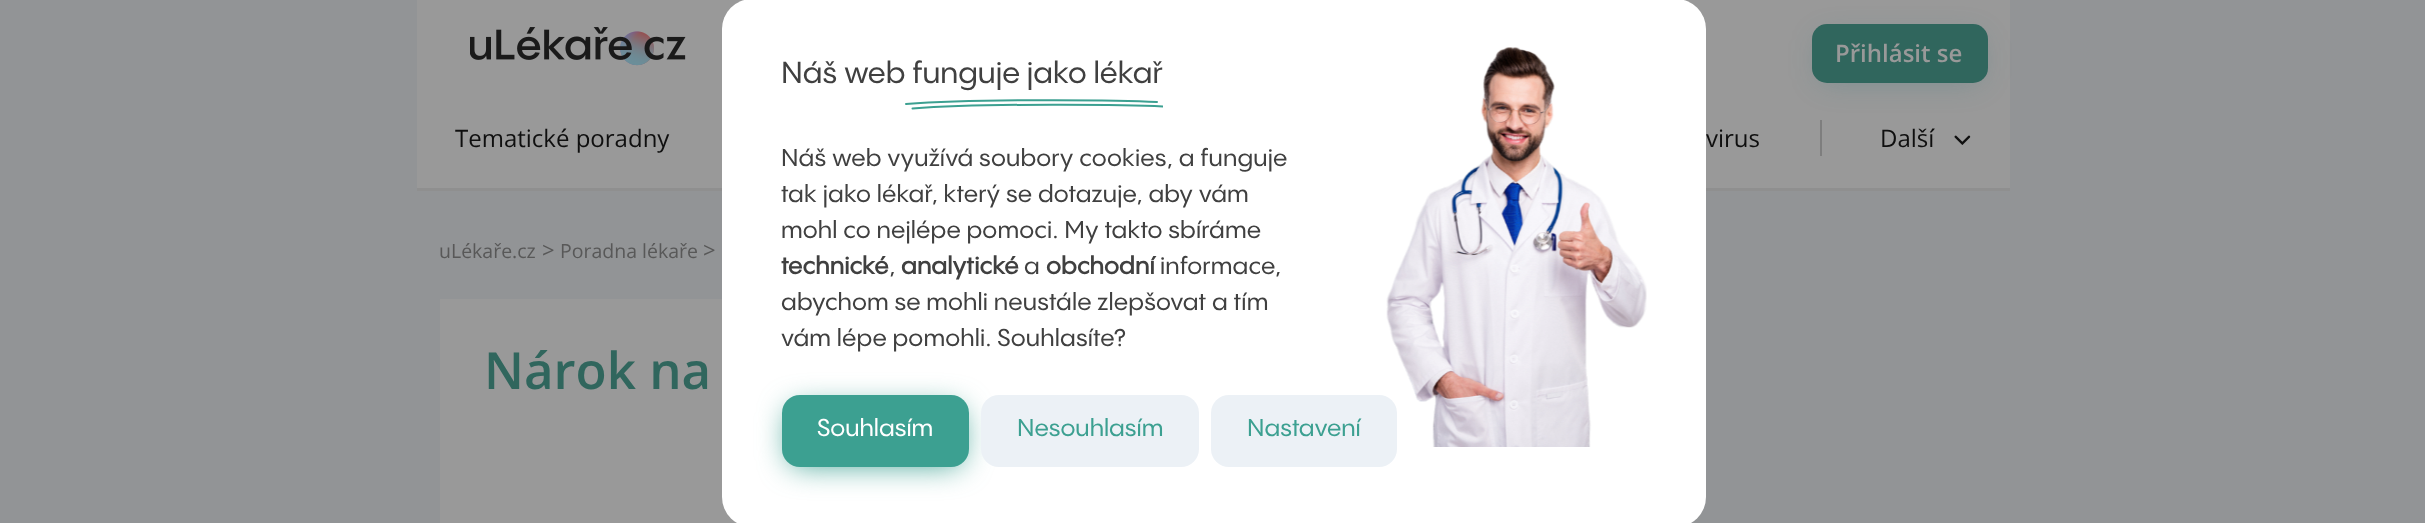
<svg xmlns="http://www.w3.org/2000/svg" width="2425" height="523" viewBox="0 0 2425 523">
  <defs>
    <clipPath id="clip1"><rect x="905" y="90" width="258" height="29"/></clipPath>
  </defs>
  <rect width="100%" height="100%" fill="rgb(146,148,150)"/>
  <rect x="417" y="0" width="1593" height="188" fill="rgb(153,153,153)"/>
  <image x="470" y="27" width="216" height="39" href="pic1.png"/>
  <rect x="417" y="188" width="1593" height="3" fill="rgb(143,143,143)"/>
  <rect x="1820" y="38" width="160" height="43" rx="8" fill="rgba(19,109,116,0.25)" filter="blur(15px)"/>
  <rect x="1812" y="24" width="176" height="59" rx="15" fill="rgb(48,102,93)"/>
  <text x="1835" y="62" font-family="Open Sans" font-size="24" font-weight="600" fill="rgb(153,153,153)">Přihlásit se</text>
  <g font-family="Open Sans" font-size="24" fill="rgb(15,15,15)">
    <text x="455" y="147">Tematické poradny</text>
    <text x="1706" y="147">virus</text>
  </g>
  <rect x="1820" y="120" width="2" height="36" fill="rgb(126,126,126)"/>
  <text x="1880" y="147" font-family="Open Sans" font-size="24" fill="rgb(15,15,15)">Další</text>
  <image x="1954" y="135" width="17" height="10" href="pic2.png"/>
  <text x="439" y="258" font-family="Open Sans" font-size="19.5" fill="rgb(88,88,88)">uLékaře.cz</text>
  <text x="542" y="258" font-family="Open Sans" font-size="22" fill="rgb(88,88,88)">&gt;</text>
  <text x="560" y="258" font-family="Open Sans" font-size="19.5" fill="rgb(88,88,88)">Poradna lékaře</text>
  <text x="703" y="258" font-family="Open Sans" font-size="22" fill="rgb(88,88,88)">&gt;</text>
  <rect x="440" y="299" width="297" height="224" fill="rgb(153,153,153)"/>
  <text x="484" y="389" font-family="Open Sans" font-size="51" font-weight="600" fill="rgb(48,102,93)">Nárok na</text>
  <rect x="722" y="-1" width="984" height="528" rx="30" fill="rgb(255,255,255)"/>
  <text x="781" y="83" font-family="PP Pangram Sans" font-size="30" font-weight="500" fill="rgb(64,64,64)">Náš web funguje jako lékař</text>
  <path d="M906 104C978.5 98.5 1123.5 100 1157 102" fill="none" stroke="rgb(60,160,145)" stroke-width="2" stroke-linecap="round" stroke-linejoin="round"/>
  <g clip-path="url(#clip1)">
    <path d="M912.5 108.5C984.5 103 1129.5 104.5 1163.5 106.5" fill="none" stroke="rgb(60,160,145)" stroke-width="2" stroke-linecap="round" stroke-linejoin="round"/>
  </g>
  <g font-family="PP Pangram Sans" font-size="24" font-weight="500" letter-spacing="0.15" fill="rgb(64,64,64)">
    <text>
      <tspan x="781" y="166">Náš web využívá soubory cookies, a funguje</tspan>
      <tspan x="781" y="202">tak jako lékař, který se dotazuje, aby vám</tspan>
      <tspan x="781" y="238">mohl co nejlépe pomoci. My takto sbíráme</tspan>
    </text>
  </g>
  <text x="781" y="274" font-family="PP Pangram Sans" font-size="24" font-weight="bold" letter-spacing="0.15" fill="rgb(64,64,64)">technické</text>
  <text x="889" y="274" font-family="PP Pangram Sans" font-size="24" font-weight="500" letter-spacing="0.15" fill="rgb(64,64,64)">,</text>
  <text x="901" y="274" font-family="PP Pangram Sans" font-size="24" font-weight="bold" letter-spacing="0.15" fill="rgb(64,64,64)">analytické</text>
  <text x="1024" y="274" font-family="PP Pangram Sans" font-size="24" font-weight="500" letter-spacing="0.15" fill="rgb(64,64,64)">a</text>
  <text x="1046" y="274" font-family="PP Pangram Sans" font-size="24" font-weight="bold" letter-spacing="0.15" fill="rgb(64,64,64)">obchodní</text>
  <g font-family="PP Pangram Sans" font-size="24" font-weight="500" letter-spacing="0.15" fill="rgb(64,64,64)">
    <text x="1160" y="274">informace,</text>
    <text>
      <tspan x="781" y="310">abychom se mohli neustále zlepšovat a tím</tspan>
      <tspan x="781" y="346">vám lépe pomohli. Souhlasíte?</tspan>
    </text>
  </g>
  <rect x="789" y="408" width="173" height="57" rx="11" fill="rgb(60,160,145)" filter="blur(15px)"/>
  <rect x="782" y="395" width="187" height="72" rx="18" fill="rgb(60,160,145)"/>
  <text x="817" y="436" font-family="PP Pangram Sans" font-size="24" font-weight="500" fill="rgb(255,255,255)">Souhlasím</text>
  <rect x="981" y="395" width="218" height="72" rx="18" fill="rgb(236,241,246)"/>
  <text x="1017" y="436" font-family="PP Pangram Sans" font-size="24" font-weight="500" fill="rgb(60,160,145)">Nesouhlasím</text>
  <rect x="1211" y="395" width="186" height="72" rx="18" fill="rgb(236,241,246)"/>
  <text x="1247" y="436" font-family="PP Pangram Sans" font-size="24" font-weight="500" fill="rgb(60,160,145)">Nastavení</text>
  <image x="1386" y="47" width="261" height="400" href="pic3.png"/>
</svg>
